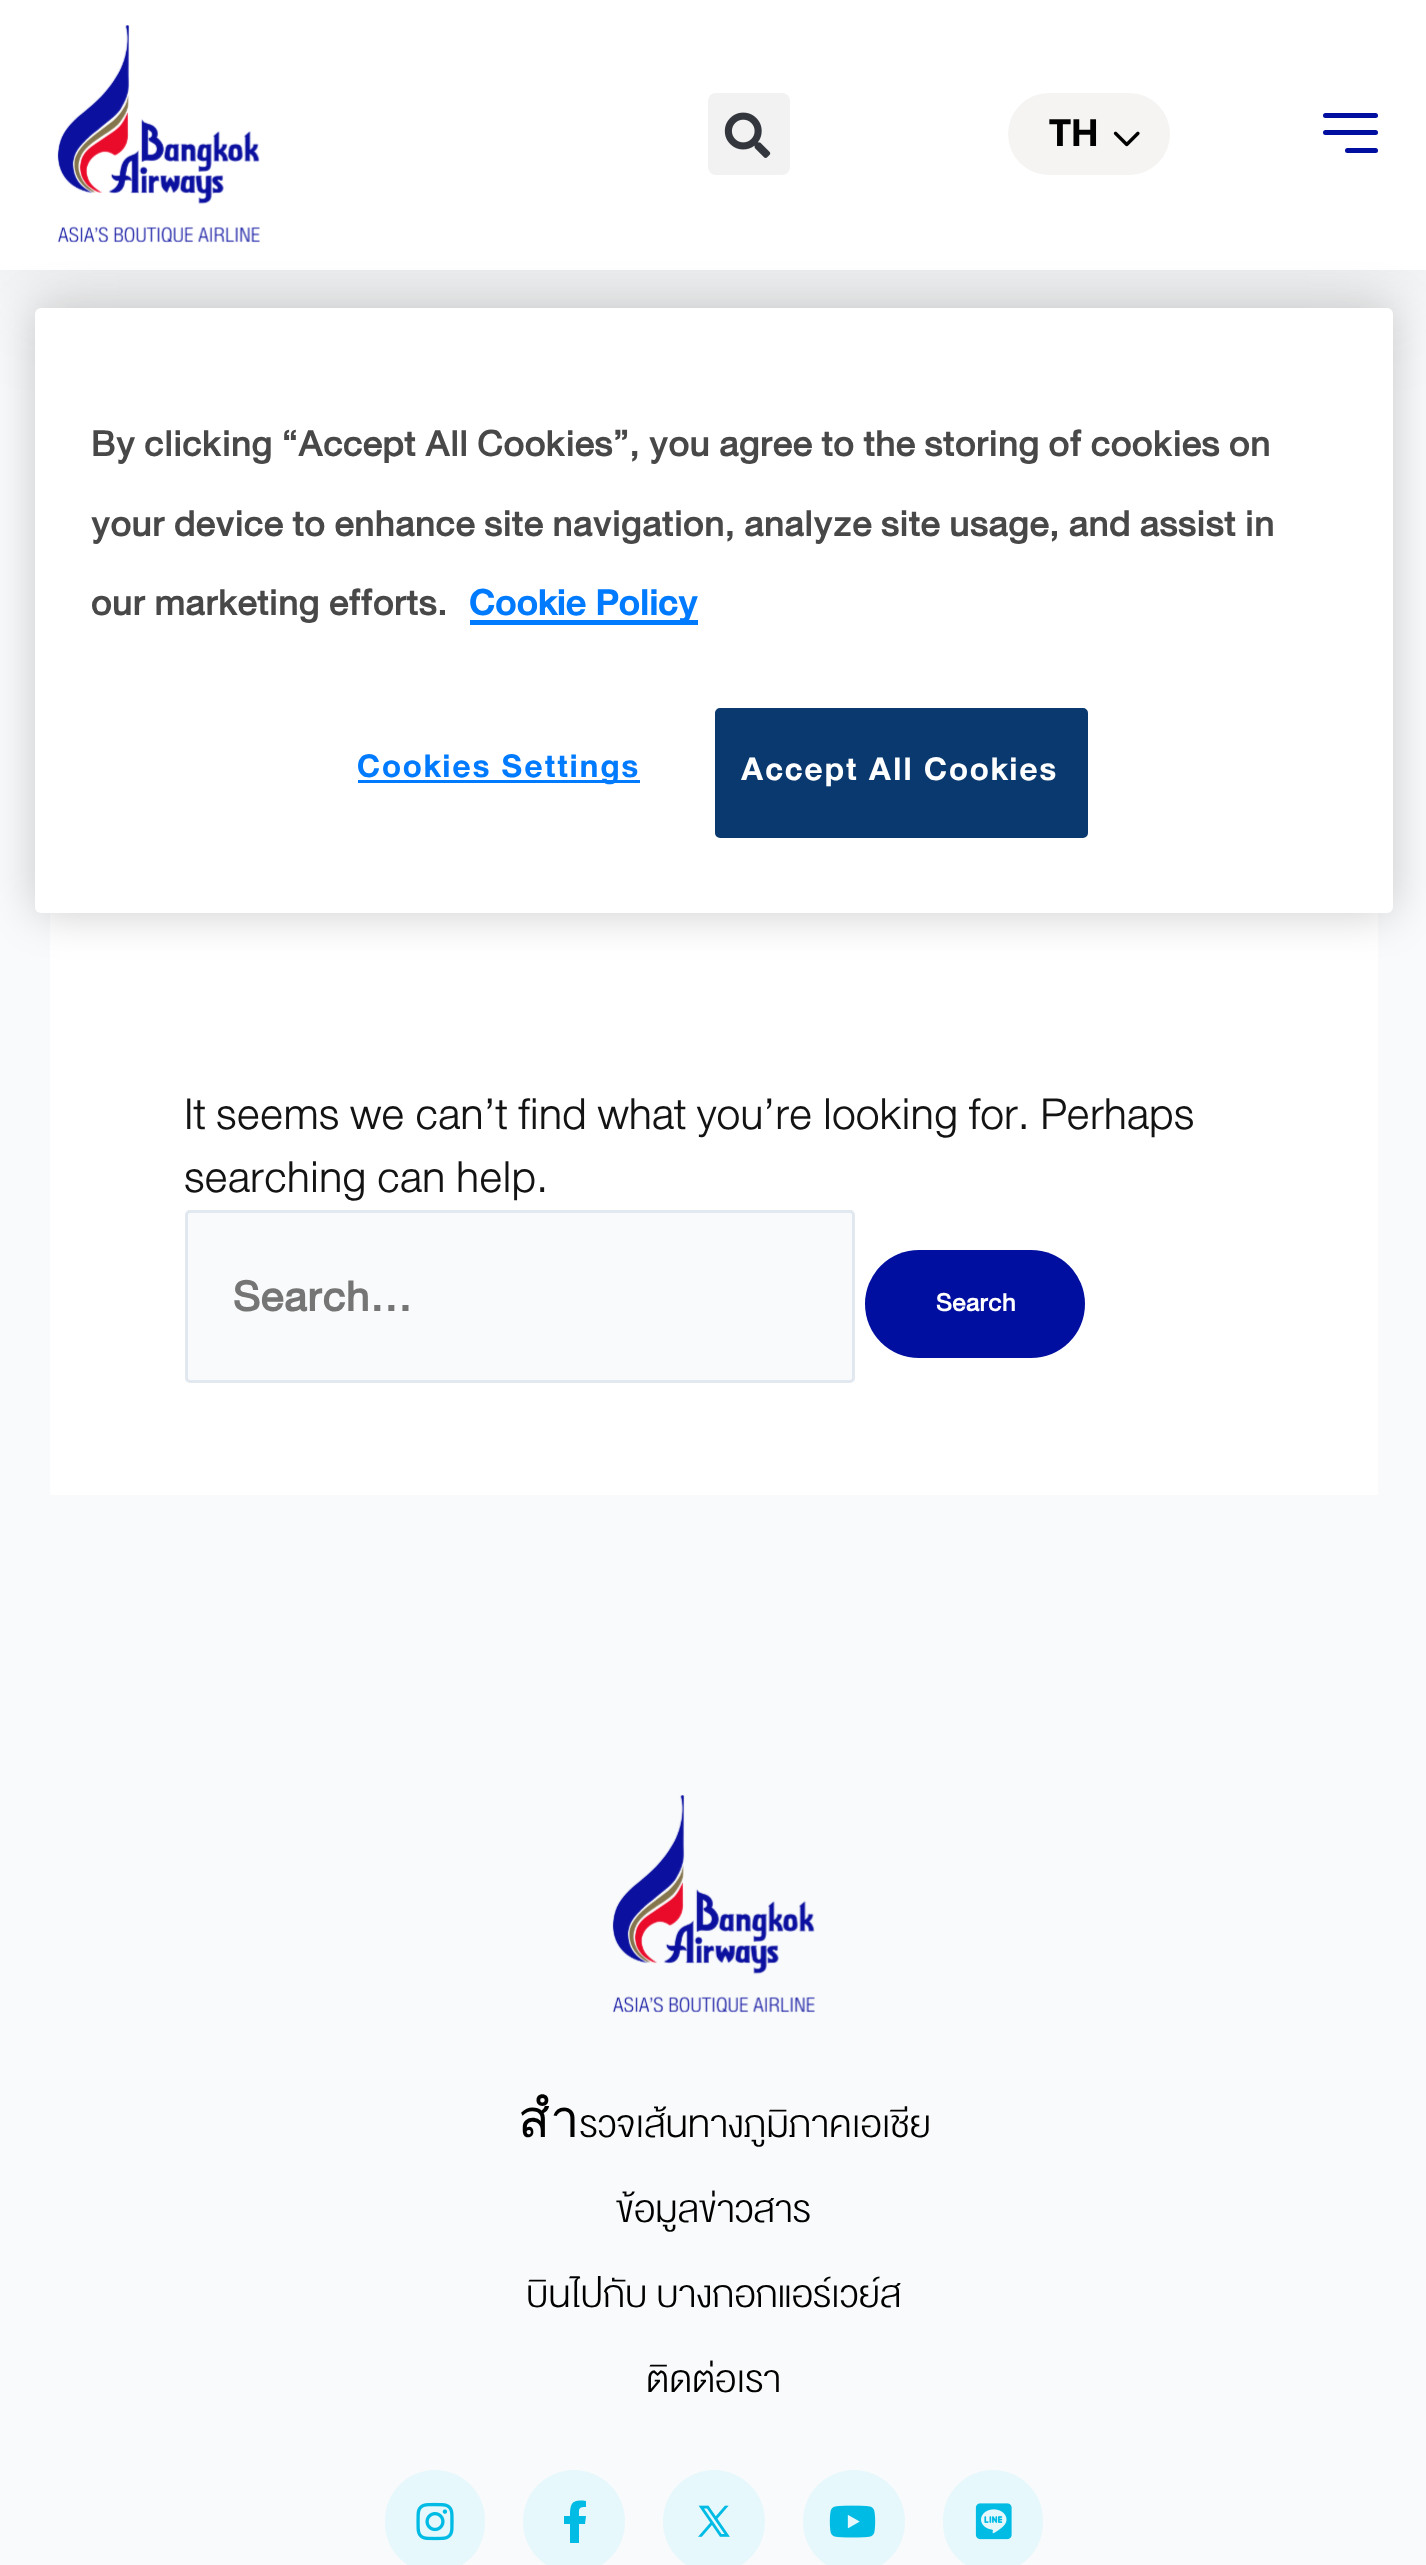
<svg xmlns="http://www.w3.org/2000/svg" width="1426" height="2565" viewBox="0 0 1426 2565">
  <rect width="100%" height="100%" fill="rgb(249,250,251)"/>
  <rect x="0" y="10" width="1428" height="270" fill="rgba(0,0,0,0.1)" filter="blur(62.5px)"/>
  <rect x="0" y="0" width="1426" height="270" fill="rgb(255,255,255)"/>
  <image x="57" y="25" width="203" height="218" href="pic1.png"/>
  <rect x="708" y="93" width="82" height="82" rx="8" fill="rgb(242,242,242)"/>
  <image x="724" y="112" width="47" height="46" href="pic2.png"/>
  <rect x="1008" y="93" width="162" height="82" rx="41" fill="rgb(245,244,242)"/>
  <text x="1049" y="146" font-family="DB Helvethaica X" font-size="55" font-weight="bold" fill="rgb(0,0,0)">TH</text>
  <image x="1113" y="131" width="27" height="16" href="pic3.png"/>
  <rect x="1323" y="113" width="55" height="5" rx="2.5" fill="rgb(0,15,159)"/>
  <rect x="1323" y="130" width="55" height="5" rx="2.5" fill="rgb(0,15,159)"/>
  <rect x="1345" y="148" width="33" height="5" rx="2.5" fill="rgb(0,15,159)"/>
  <rect x="50" y="913" width="1328" height="582" fill="rgb(255,255,255)"/>
  <g font-family="DB Helvethaica X" font-size="62.5" font-weight="300" fill="rgb(19,19,19)">
    <text>
      <tspan x="184" y="1129">It seems we can’t find what you’re looking for. Perhaps</tspan>
      <tspan x="184" y="1192">searching can help.</tspan>
    </text>
  </g>
  <rect x="186.5" y="1211.5" width="667" height="170" rx="3.5" fill="rgb(249,250,251)" stroke="rgb(226,232,240)" stroke-width="3"/>
  <text x="233" y="1311" font-family="DB Helvethaica X" font-size="62.5" font-weight="500" fill="rgb(117,117,117)">Search...</text>
  <rect x="865" y="1250" width="220" height="108" rx="54" fill="rgb(0,15,159)"/>
  <text x="936" y="1311" font-family="DB Helvethaica X" font-size="36.5" font-weight="500" fill="rgb(255,255,255)">Search</text>
  <image x="612" y="1795" width="203" height="218" href="pic4.png"/>
  <g font-family="DB Helvethaica X" font-size="52.5" font-weight="300" fill="rgb(0,0,0)">
    <text x="518" y="2137">สำรวจเส้นทางภูมิภาคเอเชีย</text>
    <text x="616" y="2222">ข้อมูลข่าวสาร</text>
    <text x="526" y="2307">บินไปกับ บางกอกแอร์เวย์ส</text>
    <text x="646" y="2392">ติดต่อเรา</text>
  </g>
  <rect x="385" y="2470" width="100" height="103" rx="50" fill="rgb(230,248,252)"/>
  <image x="416" y="2502" width="38" height="39" href="pic5.png"/>
  <rect x="523" y="2470" width="102" height="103" rx="51" fill="rgb(230,248,252)"/>
  <path d="M585 2524H579V2543H570V2524H564V2516H570C570 2503 572 2499 586 2501V2507C578 2507 579 2509 579 2516H586Z" fill="rgb(0,187,228)"/>
  <rect x="663" y="2470" width="102" height="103" rx="51" fill="rgb(230,248,252)"/>
  <image x="698" y="2505" width="32" height="32" href="pic6.png"/>
  <rect x="803" y="2470" width="102" height="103" rx="51" fill="rgb(230,248,252)"/>
  <image x="829" y="2505" width="47" height="33" href="pic7.png"/>
  <rect x="943" y="2470" width="100" height="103" rx="50" fill="rgb(230,248,252)"/>
  <image x="975" y="2503" width="37" height="37" href="pic8.png"/>
  <rect x="35" y="308" width="1358" height="605" rx="6" fill="rgba(0,0,0,0.2)" filter="blur(22.5px)"/>
  <rect x="35" y="308" width="1358" height="605" rx="6" fill="rgb(255,255,255)"/>
  <g font-family="DB Helvethaica X" font-size="52.95" font-weight="500" fill="rgb(72,72,72)">
    <text>
      <tspan x="91" y="456">By clicking “Accept All Cookies”, you agree to the storing of cookies on</tspan>
      <tspan x="91" y="536">your device to enhance site navigation, analyze site usage, and assist in</tspan>
      <tspan x="91" y="615">our marketing efforts.</tspan>
    </text>
  </g>
  <rect x="470" y="620" width="228" height="5" fill="rgb(0,123,255)"/>
  <text x="469" y="615" font-family="DB Helvethaica X" font-size="52.95" font-weight="bold" fill="rgb(0,123,255)">Cookie Policy</text>
  <rect x="358" y="780" width="282" height="3" fill="rgb(0,123,255)"/>
  <text x="357" y="777" font-family="DB Helvethaica X" font-size="46" font-weight="bold" letter-spacing="2.25" fill="rgb(0,123,255)">Cookies Settings</text>
  <rect x="716.5" y="709.5" width="370" height="127" rx="3.5" fill="rgb(9,57,111)" stroke="rgb(9,57,111)" stroke-width="3"/>
  <text x="741" y="780" font-family="DB Helvethaica X" font-size="46" font-weight="bold" letter-spacing="2.25" fill="rgb(255,255,255)">Accept All Cookies</text>
</svg>
